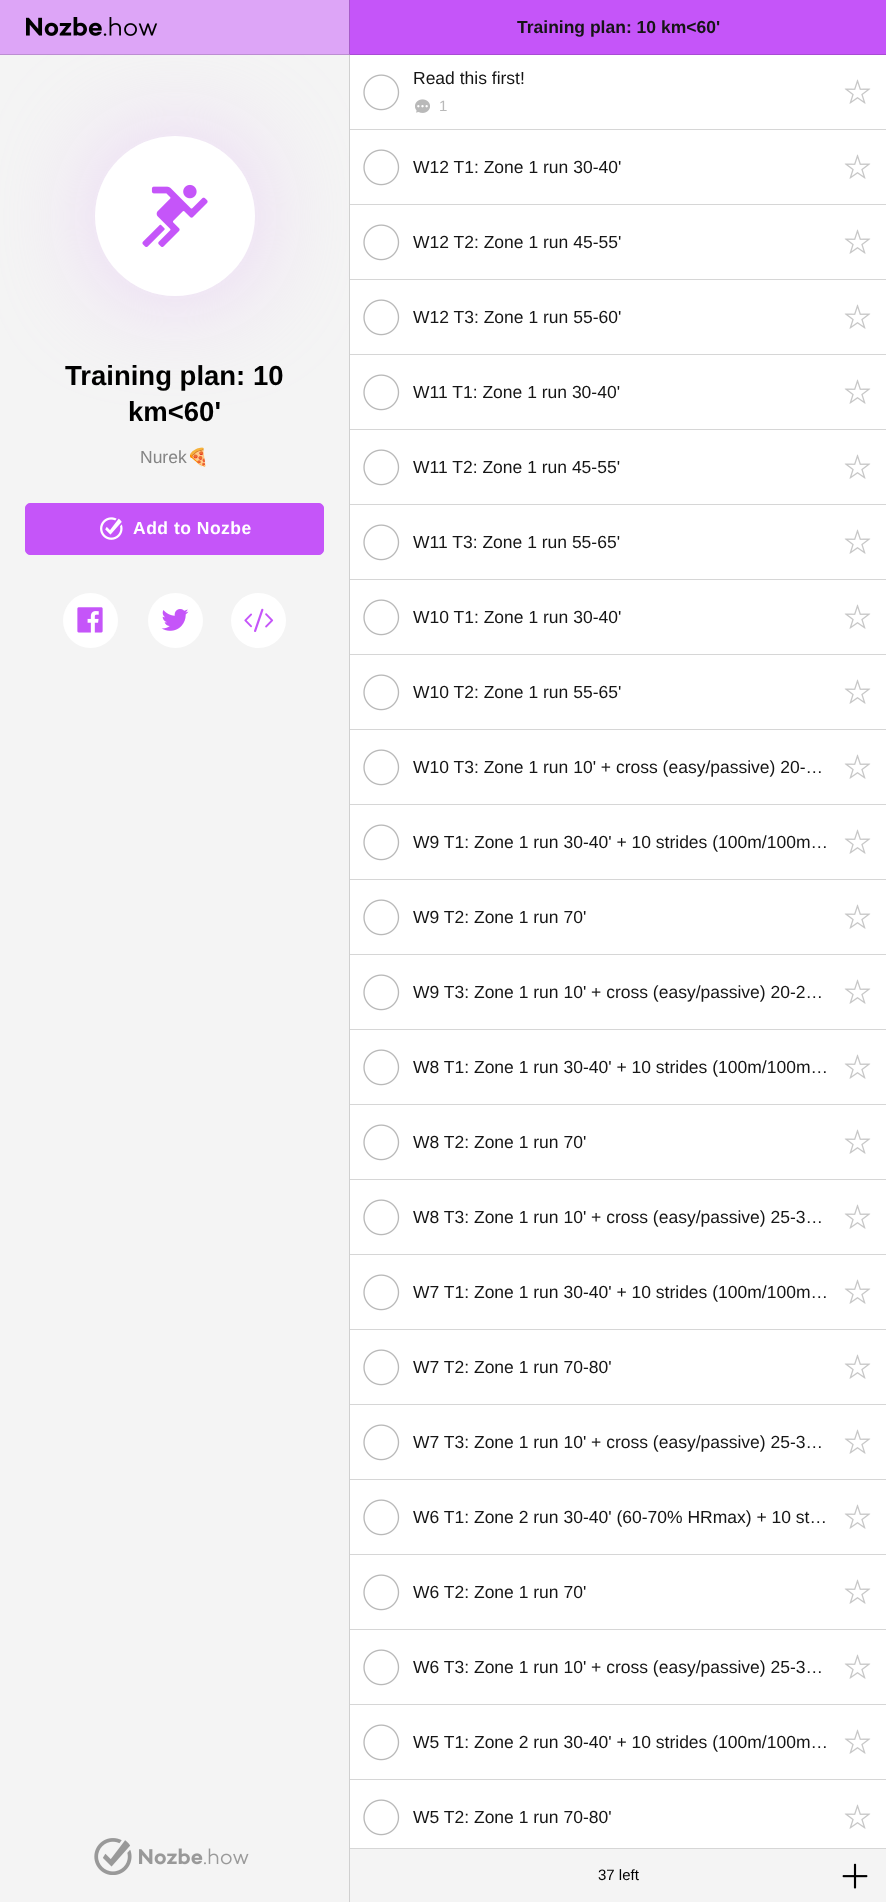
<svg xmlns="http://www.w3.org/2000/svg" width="886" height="1902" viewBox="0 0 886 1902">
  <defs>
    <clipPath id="clip1"><rect x="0" y="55" width="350" height="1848"/></clipPath>
  </defs>
  <rect width="100%" height="100%" fill="rgb(244,244,244)"/>
  <rect x="350" y="0" width="536" height="54" fill="rgb(197,85,249)"/>
  <rect x="350" y="54" width="536" height="1" fill="rgb(169,75,212)"/>
  <rect x="350" y="55" width="536" height="74" fill="rgb(255,255,255)"/>
  <rect x="350" y="129" width="536" height="1" fill="rgb(214,214,214)"/>
  <image x="363" y="74" width="37" height="37" href="pic8.png"/>
  <rect x="350" y="130" width="536" height="74" fill="rgb(255,255,255)"/>
  <rect x="350" y="204" width="536" height="1" fill="rgb(214,214,214)"/>
  <image x="363" y="149" width="37" height="37" href="pic8.png"/>
  <rect x="350" y="205" width="536" height="74" fill="rgb(255,255,255)"/>
  <rect x="350" y="279" width="536" height="1" fill="rgb(214,214,214)"/>
  <image x="363" y="224" width="37" height="37" href="pic8.png"/>
  <rect x="350" y="280" width="536" height="74" fill="rgb(255,255,255)"/>
  <rect x="350" y="354" width="536" height="1" fill="rgb(214,214,214)"/>
  <image x="363" y="299" width="37" height="37" href="pic8.png"/>
  <rect x="350" y="355" width="536" height="74" fill="rgb(255,255,255)"/>
  <rect x="350" y="429" width="536" height="1" fill="rgb(214,214,214)"/>
  <image x="363" y="374" width="37" height="37" href="pic8.png"/>
  <rect x="350" y="430" width="536" height="74" fill="rgb(255,255,255)"/>
  <image x="363" y="449" width="37" height="37" href="pic8.png"/>
  <g clip-path="url(#clip1)">
    <rect x="108" y="149" width="135" height="135" rx="67.5" fill="rgb(230,196,246)" filter="blur(56px)"/>
  </g>
  <rect x="0" y="0" width="350" height="55" fill="rgb(221,165,247)"/>
  <path d="M350 0V55L349 54V0Z" fill="rgb(167,91,202)"/>
  <path d="M350 55H0V54H349Z" fill="rgba(20,20,20,0.16)"/>
  <image x="26" y="17" width="132" height="19" href="pic1.png"/>
  <rect x="349" y="55" width="1" height="1847" fill="rgb(208,208,208)"/>
  <circle cx="175" cy="216" r="80" fill="rgb(255,255,255)"/>
  <image x="142" y="184" width="66" height="63" href="pic2.png"/>
  <g font-family="Liberation Sans" font-size="27.5" font-weight="bold" fill="rgb(0,0,0)">
    <text x="65" y="385">Training plan: 10</text>
    <text x="128" y="421">km&lt;60'</text>
  </g>
  <text x="140" y="463" font-family="Liberation Sans" font-size="17.5" fill="rgb(132,132,132)">Nurek</text>
  <text x="187" y="463" font-family="Noto Color Emoji" font-size="17.5" fill="rgb(132,132,132)">🍕</text>
  <rect x="25.5" y="503.5" width="298" height="51" rx="4.5" fill="rgb(197,85,249)" stroke="rgb(197,85,249)"/>
  <image x="100" y="517" width="23" height="23" href="pic3.png"/>
  <text x="133" y="534" font-family="Liberation Sans" font-size="17.5" font-weight="bold" letter-spacing="0.5" fill="rgb(255,255,255)">Add to Nozbe</text>
  <circle cx="90.5" cy="620.5" r="27.5" fill="rgb(255,255,255)"/>
  <image x="77" y="607" width="26" height="26" href="pic4.png"/>
  <circle cx="175.5" cy="620.5" r="27.5" fill="rgb(255,255,255)"/>
  <image x="161" y="609" width="28" height="22" href="pic5.png"/>
  <circle cx="258.5" cy="620.5" r="27.5" fill="rgb(255,255,255)"/>
  <image x="244" y="608" width="30" height="24" href="pic6.png"/>
  <image x="94" y="1838" width="155" height="37" href="pic7.png"/>
  <text x="517" y="33" font-family="Liberation Sans" font-size="17.5" font-weight="bold" fill="rgb(21,21,21)">Training plan: 10 km&lt;60'</text>
  <text x="413" y="84" font-family="Liberation Sans" font-size="17.5" fill="rgb(21,21,21)">Read this first!</text>
  <image x="415" y="99" width="15" height="14" href="pic9.png"/>
  <text x="439" y="111" font-family="Liberation Sans" font-size="15" fill="rgb(185,185,185)">1</text>
  <image x="844" y="79" width="27" height="25" href="pic10.png"/>
  <text x="413" y="173" font-family="Liberation Sans" font-size="17.5" fill="rgb(21,21,21)">W12 T1: Zone 1 run 30-40'</text>
  <image x="844" y="154" width="27" height="25" href="pic10.png"/>
  <text x="413" y="248" font-family="Liberation Sans" font-size="17.5" fill="rgb(21,21,21)">W12 T2: Zone 1 run 45-55'</text>
  <image x="844" y="229" width="27" height="25" href="pic10.png"/>
  <text x="413" y="323" font-family="Liberation Sans" font-size="17.5" fill="rgb(21,21,21)">W12 T3: Zone 1 run 55-60'</text>
  <image x="844" y="304" width="27" height="25" href="pic10.png"/>
  <text x="413" y="398" font-family="Liberation Sans" font-size="17.5" fill="rgb(21,21,21)">W11 T1: Zone 1 run 30-40'</text>
  <image x="844" y="379" width="27" height="25" href="pic10.png"/>
  <rect x="350" y="504" width="536" height="1" fill="rgb(214,214,214)"/>
  <text x="413" y="473" font-family="Liberation Sans" font-size="17.5" fill="rgb(21,21,21)">W11 T2: Zone 1 run 45-55'</text>
  <image x="844" y="454" width="27" height="25" href="pic10.png"/>
  <rect x="350" y="505" width="536" height="74" fill="rgb(255,255,255)"/>
  <rect x="350" y="579" width="536" height="1" fill="rgb(214,214,214)"/>
  <image x="363" y="524" width="37" height="37" href="pic8.png"/>
  <text x="413" y="548" font-family="Liberation Sans" font-size="17.5" fill="rgb(21,21,21)">W11 T3: Zone 1 run 55-65'</text>
  <image x="844" y="529" width="27" height="25" href="pic10.png"/>
  <rect x="350" y="580" width="536" height="74" fill="rgb(255,255,255)"/>
  <rect x="350" y="654" width="536" height="1" fill="rgb(214,214,214)"/>
  <image x="363" y="599" width="37" height="37" href="pic8.png"/>
  <text x="413" y="623" font-family="Liberation Sans" font-size="17.5" fill="rgb(21,21,21)">W10 T1: Zone 1 run 30-40'</text>
  <image x="844" y="604" width="27" height="25" href="pic10.png"/>
  <rect x="350" y="655" width="536" height="74" fill="rgb(255,255,255)"/>
  <rect x="350" y="729" width="536" height="1" fill="rgb(214,214,214)"/>
  <image x="363" y="674" width="37" height="37" href="pic8.png"/>
  <text x="413" y="698" font-family="Liberation Sans" font-size="17.5" fill="rgb(21,21,21)">W10 T2: Zone 1 run 55-65'</text>
  <image x="844" y="679" width="27" height="25" href="pic10.png"/>
  <rect x="350" y="730" width="536" height="74" fill="rgb(255,255,255)"/>
  <rect x="350" y="804" width="536" height="1" fill="rgb(214,214,214)"/>
  <image x="363" y="749" width="37" height="37" href="pic8.png"/>
  <text x="413" y="773" font-family="Liberation Sans" font-size="17.5" fill="rgb(21,21,21)">W10 T3: Zone 1 run 10' + cross (easy/passive) 20-…</text>
  <image x="844" y="754" width="27" height="25" href="pic10.png"/>
  <rect x="350" y="805" width="536" height="74" fill="rgb(255,255,255)"/>
  <rect x="350" y="879" width="536" height="1" fill="rgb(214,214,214)"/>
  <image x="363" y="824" width="37" height="37" href="pic8.png"/>
  <text x="413" y="848" font-family="Liberation Sans" font-size="17.5" fill="rgb(21,21,21)">W9 T1: Zone 1 run 30-40' + 10 strides (100m/100m…</text>
  <image x="844" y="829" width="27" height="25" href="pic10.png"/>
  <rect x="350" y="880" width="536" height="74" fill="rgb(255,255,255)"/>
  <rect x="350" y="954" width="536" height="1" fill="rgb(214,214,214)"/>
  <image x="363" y="899" width="37" height="37" href="pic8.png"/>
  <text x="413" y="923" font-family="Liberation Sans" font-size="17.5" fill="rgb(21,21,21)">W9 T2: Zone 1 run 70'</text>
  <image x="844" y="904" width="27" height="25" href="pic10.png"/>
  <rect x="350" y="955" width="536" height="74" fill="rgb(255,255,255)"/>
  <rect x="350" y="1029" width="536" height="1" fill="rgb(214,214,214)"/>
  <image x="363" y="974" width="37" height="37" href="pic8.png"/>
  <text x="413" y="998" font-family="Liberation Sans" font-size="17.5" fill="rgb(21,21,21)">W9 T3: Zone 1 run 10' + cross (easy/passive) 20-2…</text>
  <image x="844" y="979" width="27" height="25" href="pic10.png"/>
  <rect x="350" y="1030" width="536" height="74" fill="rgb(255,255,255)"/>
  <rect x="350" y="1104" width="536" height="1" fill="rgb(214,214,214)"/>
  <image x="363" y="1049" width="37" height="37" href="pic8.png"/>
  <text x="413" y="1073" font-family="Liberation Sans" font-size="17.5" fill="rgb(21,21,21)">W8 T1: Zone 1 run 30-40' + 10 strides (100m/100m…</text>
  <image x="844" y="1054" width="27" height="25" href="pic10.png"/>
  <rect x="350" y="1105" width="536" height="74" fill="rgb(255,255,255)"/>
  <rect x="350" y="1179" width="536" height="1" fill="rgb(214,214,214)"/>
  <image x="363" y="1124" width="37" height="37" href="pic8.png"/>
  <text x="413" y="1148" font-family="Liberation Sans" font-size="17.5" fill="rgb(21,21,21)">W8 T2: Zone 1 run 70'</text>
  <image x="844" y="1129" width="27" height="25" href="pic10.png"/>
  <rect x="350" y="1180" width="536" height="74" fill="rgb(255,255,255)"/>
  <rect x="350" y="1254" width="536" height="1" fill="rgb(214,214,214)"/>
  <image x="363" y="1199" width="37" height="37" href="pic8.png"/>
  <text x="413" y="1223" font-family="Liberation Sans" font-size="17.5" fill="rgb(21,21,21)">W8 T3: Zone 1 run 10' + cross (easy/passive) 25-3…</text>
  <image x="844" y="1204" width="27" height="25" href="pic10.png"/>
  <rect x="350" y="1255" width="536" height="74" fill="rgb(255,255,255)"/>
  <rect x="350" y="1329" width="536" height="1" fill="rgb(214,214,214)"/>
  <image x="363" y="1274" width="37" height="37" href="pic8.png"/>
  <text x="413" y="1298" font-family="Liberation Sans" font-size="17.5" fill="rgb(21,21,21)">W7 T1: Zone 1 run 30-40' + 10 strides (100m/100m…</text>
  <image x="844" y="1279" width="27" height="25" href="pic10.png"/>
  <rect x="350" y="1330" width="536" height="74" fill="rgb(255,255,255)"/>
  <rect x="350" y="1404" width="536" height="1" fill="rgb(214,214,214)"/>
  <image x="363" y="1349" width="37" height="37" href="pic8.png"/>
  <text x="413" y="1373" font-family="Liberation Sans" font-size="17.5" fill="rgb(21,21,21)">W7 T2: Zone 1 run 70-80'</text>
  <image x="844" y="1354" width="27" height="25" href="pic10.png"/>
  <rect x="350" y="1405" width="536" height="74" fill="rgb(255,255,255)"/>
  <rect x="350" y="1479" width="536" height="1" fill="rgb(214,214,214)"/>
  <image x="363" y="1424" width="37" height="37" href="pic8.png"/>
  <text x="413" y="1448" font-family="Liberation Sans" font-size="17.5" fill="rgb(21,21,21)">W7 T3: Zone 1 run 10' + cross (easy/passive) 25-3…</text>
  <image x="844" y="1429" width="27" height="25" href="pic10.png"/>
  <rect x="350" y="1480" width="536" height="74" fill="rgb(255,255,255)"/>
  <rect x="350" y="1554" width="536" height="1" fill="rgb(214,214,214)"/>
  <image x="363" y="1499" width="37" height="37" href="pic8.png"/>
  <text x="413" y="1523" font-family="Liberation Sans" font-size="17.5" fill="rgb(21,21,21)">W6 T1: Zone 2 run 30-40' (60-70% HRmax) + 10 st…</text>
  <image x="844" y="1504" width="27" height="25" href="pic10.png"/>
  <rect x="350" y="1555" width="536" height="74" fill="rgb(255,255,255)"/>
  <rect x="350" y="1629" width="536" height="1" fill="rgb(214,214,214)"/>
  <image x="363" y="1574" width="37" height="37" href="pic8.png"/>
  <text x="413" y="1598" font-family="Liberation Sans" font-size="17.5" fill="rgb(21,21,21)">W6 T2: Zone 1 run 70'</text>
  <image x="844" y="1579" width="27" height="25" href="pic10.png"/>
  <rect x="350" y="1630" width="536" height="74" fill="rgb(255,255,255)"/>
  <rect x="350" y="1704" width="536" height="1" fill="rgb(214,214,214)"/>
  <image x="363" y="1649" width="37" height="37" href="pic8.png"/>
  <text x="413" y="1673" font-family="Liberation Sans" font-size="17.5" fill="rgb(21,21,21)">W6 T3: Zone 1 run 10' + cross (easy/passive) 25-3…</text>
  <image x="844" y="1654" width="27" height="25" href="pic10.png"/>
  <rect x="350" y="1705" width="536" height="74" fill="rgb(255,255,255)"/>
  <rect x="350" y="1779" width="536" height="1" fill="rgb(214,214,214)"/>
  <image x="363" y="1724" width="37" height="37" href="pic8.png"/>
  <text x="413" y="1748" font-family="Liberation Sans" font-size="17.5" fill="rgb(21,21,21)">W5 T1: Zone 2 run 30-40' + 10 strides (100m/100m…</text>
  <image x="844" y="1729" width="27" height="25" href="pic10.png"/>
  <rect x="350" y="1780" width="536" height="68" fill="rgb(255,255,255)"/>
  <image x="363" y="1799" width="37" height="37" href="pic8.png"/>
  <text x="413" y="1823" font-family="Liberation Sans" font-size="17.5" fill="rgb(21,21,21)">W5 T2: Zone 1 run 70-80'</text>
  <image x="844" y="1804" width="27" height="25" href="pic10.png"/>
  <rect x="350" y="1848" width="536" height="1" fill="rgb(214,214,214)"/>
  <text x="598" y="1880" font-family="Liberation Sans" font-size="15" fill="rgb(0,0,0)">37 left</text>
  <image x="842" y="1863" width="26" height="26" href="pic11.png"/>
</svg>
